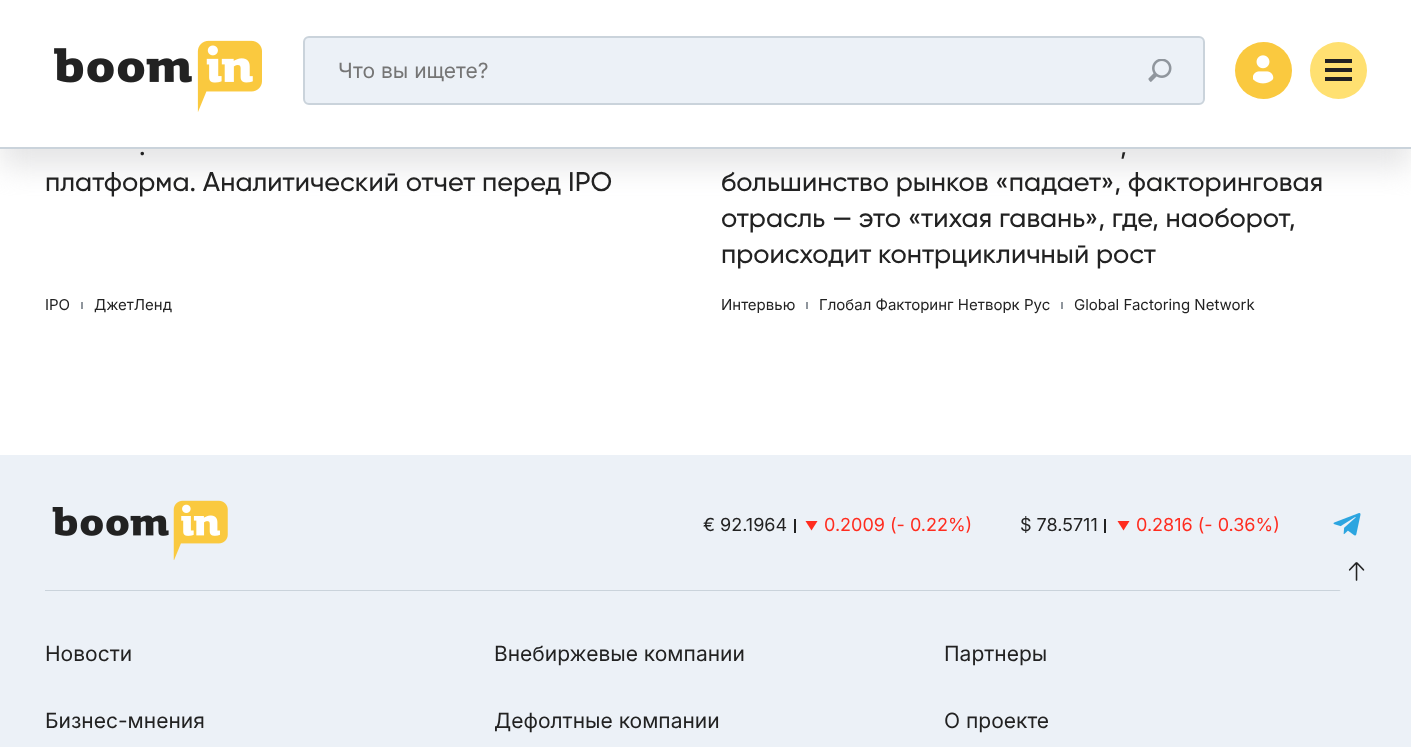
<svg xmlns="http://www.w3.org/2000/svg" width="1411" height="747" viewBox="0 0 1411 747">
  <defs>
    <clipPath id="clip1"><rect x="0" y="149" width="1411" height="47"/></clipPath>
  </defs>
  <rect width="100%" height="100%" fill="rgb(255,255,255)"/>
  <g clip-path="url(#clip1)">
    <rect x="0" y="18" width="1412" height="149" fill="rgba(218,218,219,0.7)" filter="blur(15px)"/>
  </g>
  <rect x="0" y="147" width="1411" height="2" fill="rgb(202,211,219)"/>
  <image x="54" y="40" width="208" height="72" href="pic1.png"/>
  <rect x="304" y="37" width="900" height="67" rx="5" fill="rgb(236,241,247)" stroke="rgb(202,211,219)" stroke-width="2"/>
  <text x="338" y="78" font-family="Inter" font-size="21" fill="rgb(117,117,117)">Что вы ищете?</text>
  <image x="1148" y="59" width="24" height="23" href="pic2.png"/>
  <circle cx="1263.5" cy="70.5" r="28.5" fill="rgb(250,201,63)"/>
  <image x="1253" y="55" width="21" height="29" href="pic3.png"/>
  <circle cx="1338.5" cy="70.5" r="28.5" fill="rgb(255,224,113)"/>
  <rect x="1325" y="68" width="27" height="4" fill="rgb(34,34,34)"/>
  <rect x="1325" y="59" width="27" height="4" fill="rgb(34,34,34)"/>
  <rect x="1325" y="77" width="27" height="4" fill="rgb(34,34,34)"/>
  <g font-family="Gilroy" font-size="27" font-weight="500" fill="rgb(34,34,34)">
    <text x="139" y="155">.</text>
    <text x="45" y="191">платформа. Аналитический отчет перед IPO</text>
  </g>
  <text x="45" y="310" font-family="Inter" font-size="15" fill="rgb(34,34,34)">IPO</text>
  <rect x="81" y="302" width="2" height="7" fill="rgb(144,150,157)"/>
  <text x="94" y="310" font-family="Inter" font-size="15" fill="rgb(34,34,34)">ДжетЛенд</text>
  <g font-family="Gilroy" font-size="27" font-weight="500" fill="rgb(34,34,34)">
    <text x="1120" y="155">,</text>
    <text>
      <tspan x="721" y="191">большинство рынков «падает», факторинговая</tspan>
      <tspan x="721" y="227">отрасль — это «тихая гавань», где, наоборот,</tspan>
      <tspan x="721" y="263">происходит контрцикличный рост</tspan>
    </text>
  </g>
  <text x="721" y="310" font-family="Inter" font-size="15" fill="rgb(34,34,34)">Интервью</text>
  <rect x="806" y="302" width="2" height="7" fill="rgb(144,150,157)"/>
  <text x="819" y="310" font-family="Inter" font-size="15" fill="rgb(34,34,34)">Глобал Факторинг Нетворк Рус</text>
  <rect x="1061" y="302" width="2" height="7" fill="rgb(144,150,157)"/>
  <text x="1074" y="310" font-family="Inter" font-size="15" fill="rgb(34,34,34)">Global Factoring Network</text>
  <rect x="0" y="455" width="1411" height="292" fill="rgb(236,241,247)"/>
  <rect x="45" y="590" width="1296" height="1" fill="rgb(202,211,219)"/>
  <rect x="1332" y="548" width="50" height="49" rx="24.5" fill="rgb(236,241,247)"/>
  <image x="1348" y="562" width="17" height="19" href="pic4.png"/>
  <image x="52" y="500" width="176" height="60" href="pic5.png"/>
  <text x="703" y="531" font-family="Inter" font-size="18" fill="rgb(34,34,34)">€ 92.1964</text>
  <rect x="794" y="519" width="2" height="14" fill="rgb(34,34,34)"/>
  <path d="M811.5 530.5L805.5 521H817.5Z" fill="rgb(255,44,31)"/>
  <text x="824" y="531" font-family="Inter" font-size="18" fill="rgb(255,44,31)">0.2009 (- 0.22%)</text>
  <text x="1020" y="531" font-family="Inter" font-size="18" fill="rgb(34,34,34)">$ 78.5711</text>
  <rect x="1104" y="519" width="2" height="14" fill="rgb(34,34,34)"/>
  <path d="M1123.5 530.5L1117.5 521H1129.5Z" fill="rgb(255,44,31)"/>
  <text x="1136" y="531" font-family="Inter" font-size="18" fill="rgb(255,44,31)">0.2816 (- 0.36%)</text>
  <image x="1333" y="513" width="28" height="23" href="pic6.png"/>
  <g font-family="Inter" font-size="21" fill="rgb(34,34,34)">
    <text x="45" y="661">Новости</text>
    <text x="494" y="661">Внебиржевые компании</text>
    <text x="944" y="661">Партнеры</text>
    <text x="45" y="728">Бизнес-мнения</text>
    <text x="494" y="728">Дефолтные компании</text>
    <text x="944" y="728">О проекте</text>
  </g>
</svg>
